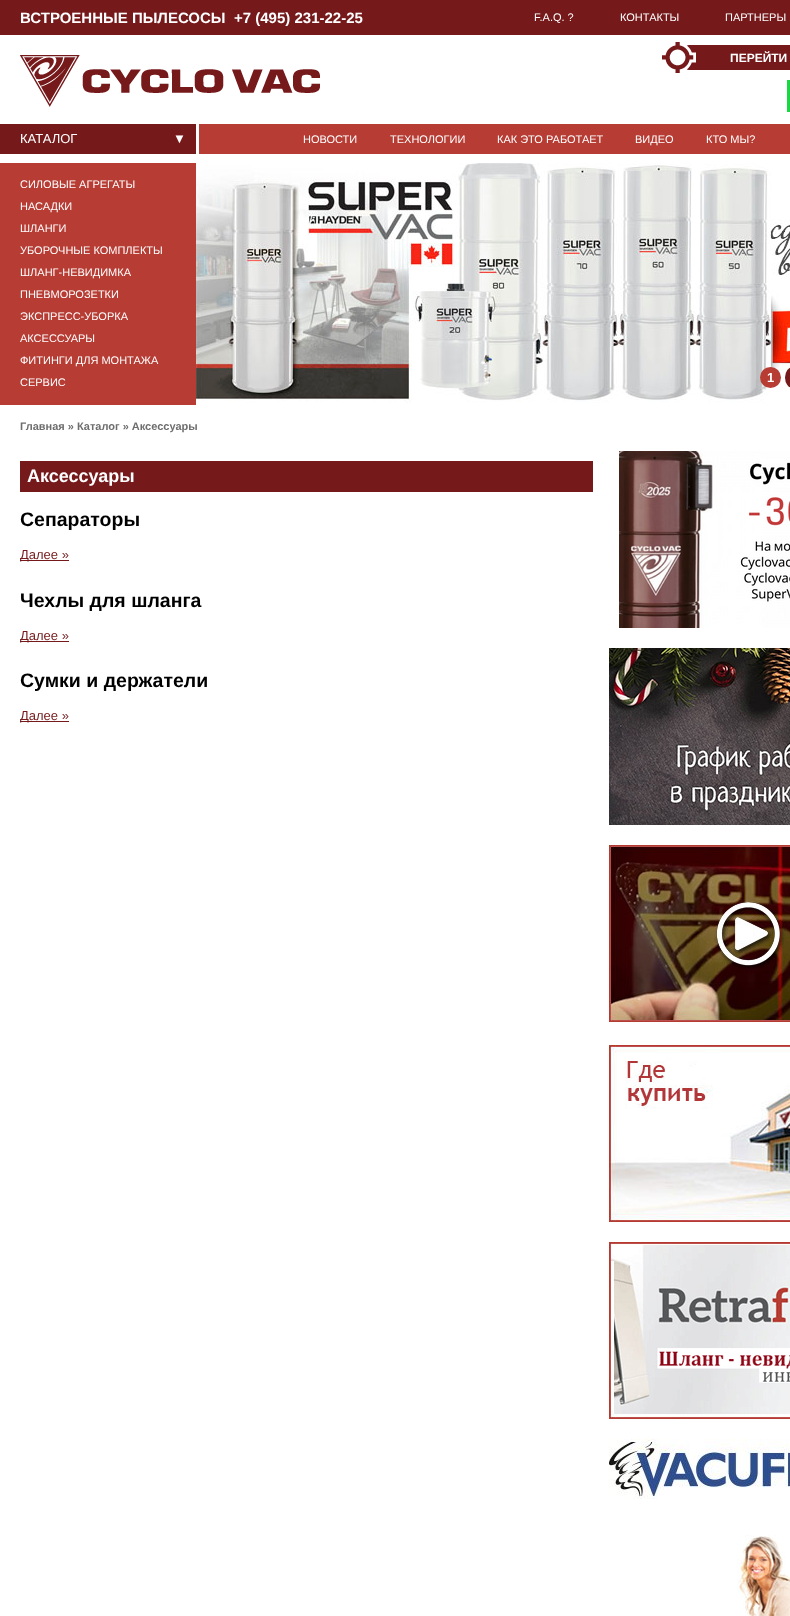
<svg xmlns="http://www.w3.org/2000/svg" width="790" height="1616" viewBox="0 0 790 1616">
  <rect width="100%" height="100%" fill="rgb(255,255,255)"/>
  <rect x="0" y="0" width="790" height="35" fill="rgb(117,25,27)"/>
  <g font-family="Liberation Sans" font-size="15" font-weight="bold" fill="rgb(255,255,255)">
    <text x="20" y="23">ВСТРОЕННЫЕ ПЫЛЕСОСЫ</text>
    <text x="234" y="23">+7 (495) 231-22-25</text>
  </g>
  <g font-family="Liberation Sans" font-size="11" fill="rgb(255,255,255)">
    <text x="534" y="21">F.A.Q. ?</text>
    <text x="620" y="21">КОНТАКТЫ</text>
    <text x="725" y="21">ПАРТНЕРЫ</text>
  </g>
  <image x="20" y="55" width="300" height="52" href="pic1.png"/>
  <rect x="686" y="45" width="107" height="25" rx="3" fill="rgb(117,25,27)"/>
  <image x="662" y="42" width="34" height="31" href="pic2.png"/>
  <text x="730" y="62" font-family="Liberation Sans" font-size="12" font-weight="bold" fill="rgb(255,255,255)">ПЕРЕЙТИ</text>
  <rect x="787" y="80" width="3" height="32" fill="rgb(27,215,65)"/>
  <rect x="199" y="124" width="591" height="30" fill="rgb(183,60,52)"/>
  <rect x="0" y="124" width="196" height="30" fill="rgb(117,25,27)"/>
  <g font-family="Liberation Sans" font-size="13" fill="rgb(255,255,255)">
    <text x="20" y="143">КАТАЛОГ</text>
    <text x="173" y="143">▼</text>
  </g>
  <g font-family="Liberation Sans" font-size="11" fill="rgb(255,255,255)">
    <text x="303" y="143">НОВОСТИ</text>
    <text x="390" y="143">ТЕХНОЛОГИИ</text>
    <text x="497" y="143">КАК ЭТО РАБОТАЕТ</text>
    <text x="635" y="143">ВИДЕО</text>
    <text x="706" y="143">КТО МЫ?</text>
  </g>
  <rect x="0" y="163" width="196" height="242" fill="rgb(183,60,52)"/>
  <g font-family="Liberation Sans" font-size="11" fill="rgb(255,255,255)">
    <text x="20" y="188">СИЛОВЫЕ АГРЕГАТЫ</text>
    <text x="20" y="210">НАСАДКИ</text>
    <text x="20" y="232">ШЛАНГИ</text>
    <text x="20" y="254">УБОРОЧНЫЕ КОМПЛЕКТЫ</text>
    <text x="20" y="276">ШЛАНГ-НЕВИДИМКА</text>
    <text x="20" y="298">ПНЕВМОРОЗЕТКИ</text>
    <text x="20" y="320">ЭКСПРЕСС-УБОРКА</text>
    <text x="20" y="342">АКСЕССУАРЫ</text>
    <text x="20" y="364">ФИТИНГИ ДЛЯ МОНТАЖА</text>
    <text x="20" y="386">СЕРВИС</text>
  </g>
  <image x="196" y="163" width="594" height="242" href="pic3.png"/>
  <circle cx="770.5" cy="377.5" r="10.5" fill="rgb(183,60,52)"/>
  <text x="767" y="382" font-family="Liberation Sans" font-size="13" font-weight="bold" fill="rgb(255,255,255)">1</text>
  <rect x="785" y="367" width="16" height="21" rx="10.5" fill="rgb(117,25,27)"/>
  <text x="20" y="430" font-family="Liberation Sans" font-size="11" font-weight="bold" fill="rgb(110,110,110)">Главная » Каталог » Аксессуары</text>
  <rect x="20" y="461" width="573" height="31" fill="rgb(117,25,27)"/>
  <text x="27" y="482" font-family="Liberation Sans" font-size="18" font-weight="bold" fill="rgb(255,255,255)">Аксессуары</text>
  <text x="20" y="526" font-family="Liberation Sans" font-size="19.5" font-weight="bold" fill="rgb(0,0,0)">Сепараторы</text>
  <rect x="20" y="560" width="49" height="1" fill="rgb(117,25,27)"/>
  <text x="20" y="559" font-family="Liberation Sans" font-size="13" fill="rgb(117,25,27)">Далее »</text>
  <text x="20" y="607" font-family="Liberation Sans" font-size="19.5" font-weight="bold" fill="rgb(0,0,0)">Чехлы для шланга</text>
  <rect x="20" y="641" width="49" height="1" fill="rgb(117,25,27)"/>
  <text x="20" y="640" font-family="Liberation Sans" font-size="13" fill="rgb(117,25,27)">Далее »</text>
  <text x="20" y="687" font-family="Liberation Sans" font-size="19.5" font-weight="bold" fill="rgb(0,0,0)">Сумки и держатели</text>
  <rect x="20" y="721" width="49" height="1" fill="rgb(117,25,27)"/>
  <text x="20" y="720" font-family="Liberation Sans" font-size="13" fill="rgb(117,25,27)">Далее »</text>
  <image x="619" y="451" width="171" height="177" href="pic4.png"/>
  <image x="609" y="648" width="181" height="177" href="pic5.png"/>
  <image x="609" y="845" width="181" height="177" href="pic6.png"/>
  <image x="609" y="1045" width="181" height="177" href="pic7.png"/>
  <image x="609" y="1242" width="181" height="177" href="pic8.png"/>
  <image x="609" y="1439" width="181" height="60" href="pic9.png"/>
  <image x="737" y="1535" width="53" height="81" href="pic10.png"/>
</svg>
